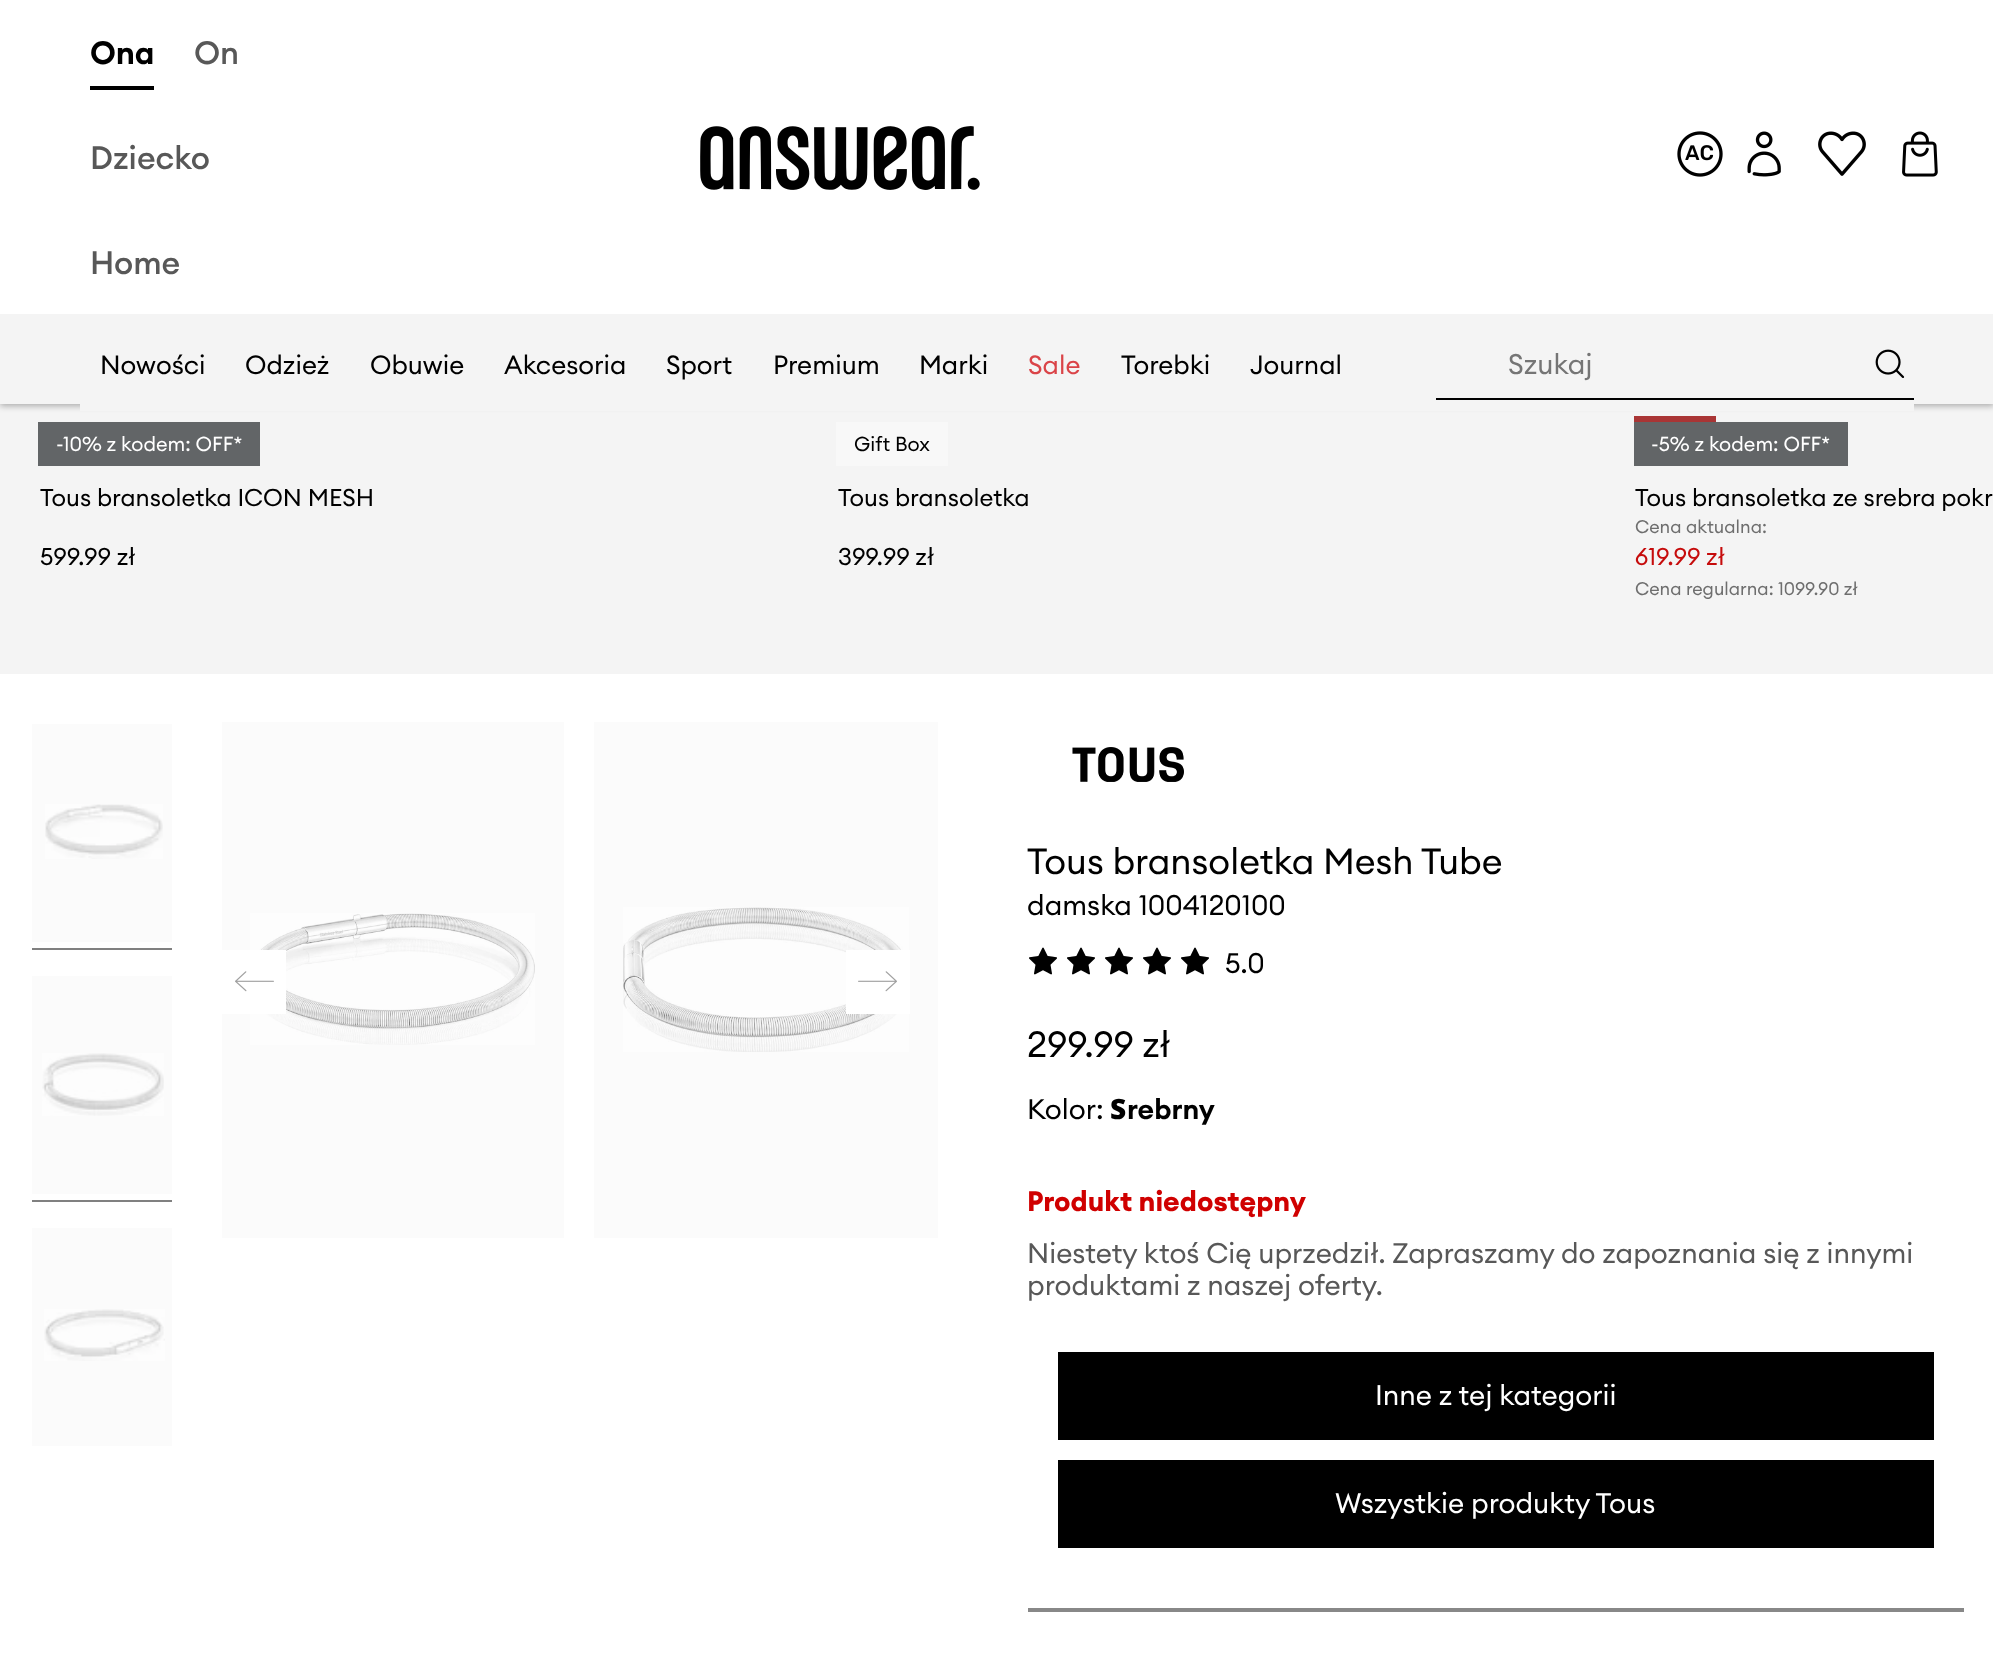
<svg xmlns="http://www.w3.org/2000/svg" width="1993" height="1656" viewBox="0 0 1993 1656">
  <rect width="100%" height="100%" fill="rgb(255,255,255)"/>
  <rect x="0" y="404" width="1993" height="270" fill="rgb(244,244,244)"/>
  <rect x="0" y="2" width="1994" height="404" fill="rgba(0,0,0,0.3)" filter="blur(3px)"/>
  <rect x="0" y="0" width="1993" height="314" fill="rgb(255,255,255)"/>
  <text x="90" y="64" font-family="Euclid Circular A" font-size="32" font-weight="600" fill="rgb(0,0,0)">Ona</text>
  <rect x="90" y="86" width="64" height="4" fill="rgb(0,0,0)"/>
  <g font-family="Euclid Circular A" font-size="32" font-weight="500" fill="rgb(88,88,88)">
    <text x="194" y="64">On</text>
    <text x="90" y="169">Dziecko</text>
    <text x="90" y="274">Home</text>
  </g>
  <image x="700" y="126" width="280" height="64" href="pic1.png"/>
  <image x="1677" y="131" width="46" height="46" href="pic2.png"/>
  <image x="1747" y="131" width="34" height="46" href="pic3.png"/>
  <image x="1818" y="131" width="48" height="45" href="pic4.png"/>
  <image x="1902" y="131" width="36" height="46" href="pic5.png"/>
  <rect x="0" y="314" width="1993" height="90" fill="rgb(244,244,244)"/>
  <rect x="80" y="404" width="1834" height="7" fill="rgb(244,244,244)"/>
  <g font-family="Euclid Circular A" font-size="26" fill="rgb(0,0,0)">
    <text x="100" y="374">Nowości</text>
    <text x="245" y="374">Odzież</text>
    <text x="370" y="374">Obuwie</text>
    <text x="504" y="374">Akcesoria</text>
    <text x="666" y="374">Sport</text>
    <text x="773" y="374">Premium</text>
    <text x="919" y="374">Marki</text>
  </g>
  <text x="1028" y="374" font-family="Euclid Circular A" font-size="26" fill="rgb(218,68,72)">Sale</text>
  <g font-family="Euclid Circular A" font-size="26" fill="rgb(0,0,0)">
    <text x="1121" y="374">Torebki</text>
    <text x="1250" y="374">Journal</text>
  </g>
  <rect x="1436" y="398" width="478" height="2" fill="rgb(0,0,0)"/>
  <text x="1508" y="374" font-family="Euclid Circular A" font-size="28" fill="rgb(117,117,117)">Szukaj</text>
  <image x="1875" y="349" width="30" height="29" href="pic6.png"/>
  <rect x="38" y="422" width="222" height="44" fill="rgb(98,101,103)"/>
  <text x="56" y="451" font-family="Euclid Circular A" font-size="20" fill="rgb(255,255,255)">-10% z kodem: OFF*</text>
  <g font-family="Euclid Circular A" font-size="24" fill="rgb(0,0,0)">
    <text x="40" y="506">Tous bransoletka ICON MESH</text>
    <text x="40" y="565">599.99 zł</text>
  </g>
  <rect x="836" y="422" width="112" height="44" fill="rgb(248,248,248)"/>
  <text x="854" y="451" font-family="Euclid Circular A" font-size="20" fill="rgb(0,0,0)">Gift Box</text>
  <g font-family="Euclid Circular A" font-size="24" fill="rgb(0,0,0)">
    <text x="838" y="506">Tous bransoletka</text>
    <text x="838" y="565">399.99 zł</text>
  </g>
  <rect x="1634" y="416" width="82" height="6" fill="rgb(169,53,53)"/>
  <rect x="1634" y="422" width="214" height="44" fill="rgb(98,101,103)"/>
  <text x="1651" y="451" font-family="Euclid Circular A" font-size="20" fill="rgb(255,255,255)">-5% z kodem: OFF*</text>
  <text x="1635" y="506" font-family="Euclid Circular A" font-size="24" fill="rgb(0,0,0)">Tous bransoletka ze srebra pokr</text>
  <text x="1635" y="533" font-family="Euclid Circular A" font-size="18" fill="rgb(110,110,110)">Cena aktualna:</text>
  <text x="1635" y="565" font-family="Euclid Circular A" font-size="24" fill="rgb(198,12,12)">619.99 zł</text>
  <text x="1635" y="595" font-family="Euclid Circular A" font-size="18" fill="rgb(110,110,110)">Cena regularna: 1099.90 zł</text>
  <rect x="32" y="948" width="140" height="2" fill="rgb(128,128,128)"/>
  <rect x="32" y="724" width="140" height="218" fill="rgb(251,251,251)"/>
  <image x="45" y="804" width="118" height="55" href="pic7.png"/>
  <rect x="32" y="1200" width="140" height="2" fill="rgb(128,128,128)"/>
  <rect x="32" y="976" width="140" height="218" fill="rgb(251,251,251)"/>
  <image x="42" y="1053" width="122" height="63" href="pic8.png"/>
  <rect x="32" y="1228" width="140" height="218" fill="rgb(251,251,251)"/>
  <image x="44" y="1309" width="121" height="52" href="pic9.png"/>
  <rect x="222" y="722" width="342" height="516" fill="rgb(251,251,251)"/>
  <image x="250" y="913" width="285" height="132" href="pic10.png"/>
  <rect x="594" y="722" width="344" height="516" fill="rgb(251,251,251)"/>
  <image x="623" y="907" width="286" height="145" href="pic11.png"/>
  <rect x="222" y="950" width="64" height="64" fill="rgb(255,255,255)"/>
  <image x="235" y="971" width="39" height="21" href="pic12.png"/>
  <rect x="846" y="950" width="64" height="64" fill="rgb(255,255,255)"/>
  <image x="858" y="971" width="39" height="21" href="pic13.png"/>
  <image x="1072" y="747" width="112" height="35" href="pic14.png"/>
  <text x="1027" y="874" font-family="Euclid Circular A" font-size="36" fill="rgb(0,0,0)">Tous bransoletka Mesh Tube</text>
  <text x="1027" y="915" font-family="Euclid Circular A" font-size="28" fill="rgb(0,0,0)">damska 1004120100</text>
  <image x="1029" y="947" width="28" height="28" href="pic15.png"/>
  <image x="1067" y="947" width="28" height="28" href="pic15.png"/>
  <image x="1105" y="947" width="28" height="28" href="pic15.png"/>
  <image x="1143" y="947" width="28" height="28" href="pic15.png"/>
  <image x="1181" y="947" width="28" height="28" href="pic15.png"/>
  <text x="1225" y="973" font-family="Euclid Circular A" font-size="28" fill="rgb(0,0,0)">5.0</text>
  <text x="1027" y="1057" font-family="Euclid Circular A" font-size="36" fill="rgb(0,0,0)">299.99 zł</text>
  <text x="1027" y="1119" font-family="Euclid Circular A" font-size="28" fill="rgb(0,0,0)">Kolor:</text>
  <text x="1110" y="1119" font-family="Noto Sans" font-size="28" font-weight="900" fill="rgb(0,0,0)">S</text>
  <text x="1127" y="1119" font-family="Euclid Circular A" font-size="28" font-weight="600" fill="rgb(0,0,0)">rebrny</text>
  <text x="1027" y="1211" font-family="Euclid Circular A" font-size="28" font-weight="bold" fill="rgb(208,0,0)">Produkt niedostępny</text>
  <g font-family="Euclid Circular A" font-size="28" fill="rgb(88,88,88)">
    <text>
      <tspan x="1027" y="1263">Niestety ktoś Cię uprzedził. Zapraszamy do zapoznania się z innymi</tspan>
      <tspan x="1027" y="1295">produktami z naszej oferty.</tspan>
    </text>
  </g>
  <rect x="1058" y="1352" width="876" height="88" fill="rgb(0,0,0)"/>
  <text x="1375" y="1405" font-family="Euclid Circular A" font-size="28" fill="rgb(255,255,255)">Inne z tej kategorii</text>
  <rect x="1058" y="1460" width="876" height="88" fill="rgb(0,0,0)"/>
  <text x="1335" y="1513" font-family="Euclid Circular A" font-size="28" fill="rgb(255,255,255)">Wszystkie produkty Tous</text>
  <rect x="1028" y="1608" width="936" height="4" fill="rgb(136,136,136)"/>
</svg>
